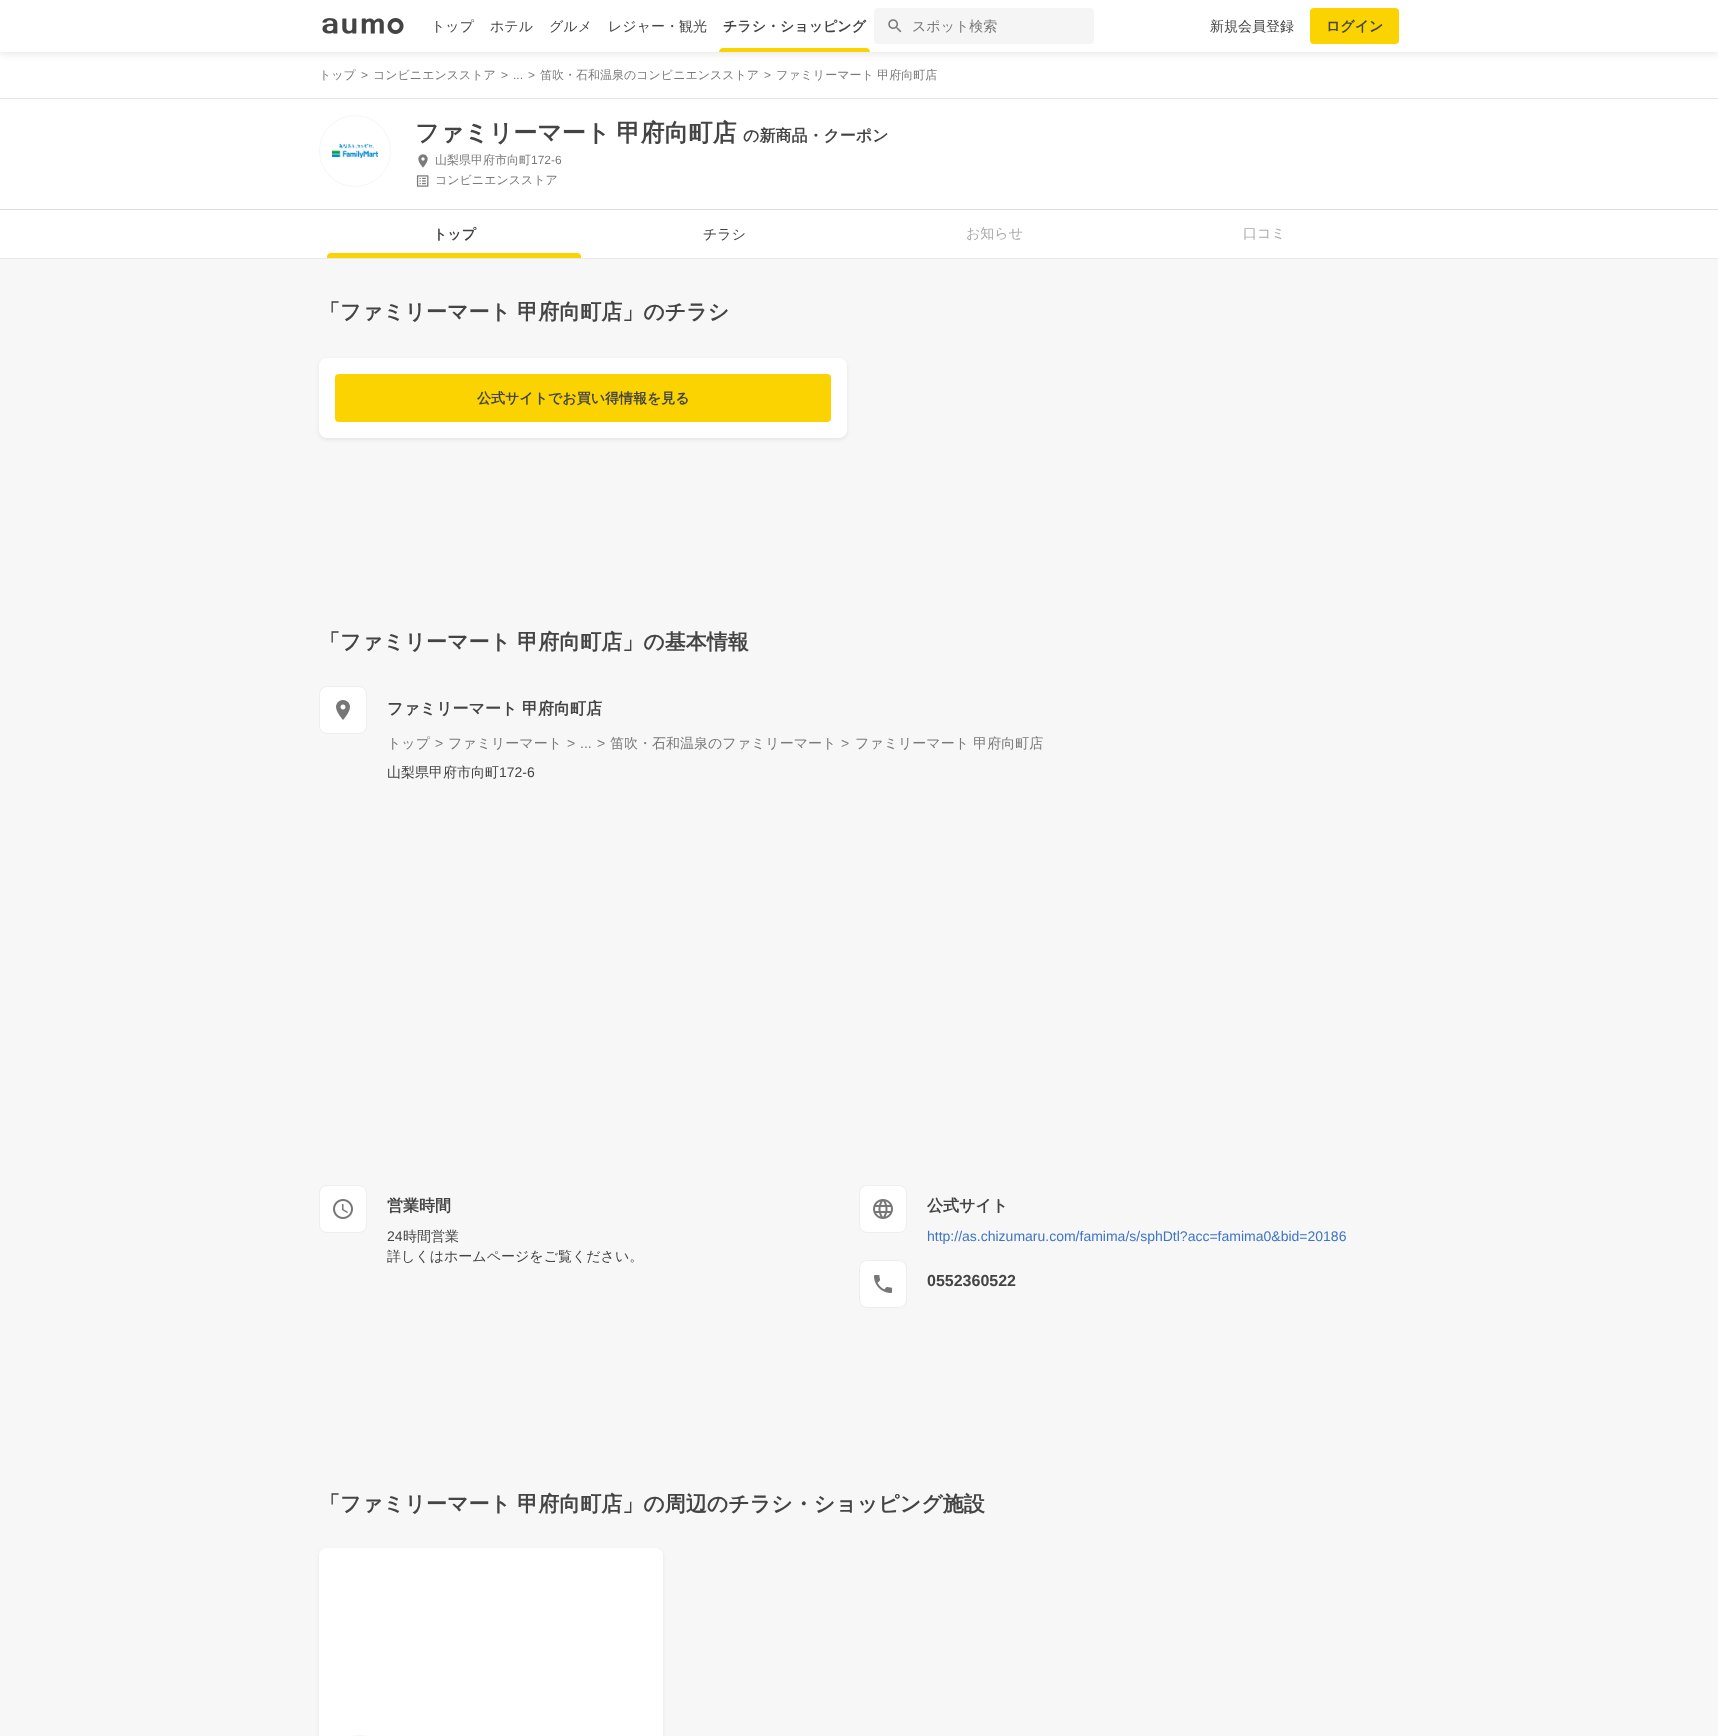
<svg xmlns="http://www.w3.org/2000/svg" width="1718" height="1736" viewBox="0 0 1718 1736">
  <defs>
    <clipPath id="clip1"><rect x="319" y="210" width="1080" height="48"/></clipPath>
  </defs>
  <rect width="100%" height="100%" fill="rgb(247,247,247)"/>
  <rect x="0" y="52" width="1718" height="46" fill="rgb(255,255,255)"/>
  <rect x="0" y="3" width="1718" height="52" fill="rgba(0,0,0,0.08)" filter="blur(3px)"/>
  <rect x="0" y="0" width="1718" height="52" fill="rgb(255,255,255)"/>
  <image x="322" y="18" width="82" height="16" href="pic1.png"/>
  <g font-family="WenQuanYi Zen Hei" font-size="14" font-weight="500" fill="rgb(68,68,68)">
    <text x="431" y="31">トップ</text>
    <text x="490" y="31">ホテル</text>
    <text x="549" y="31">グルメ</text>
    <text x="608" y="31">レジャー・観光</text>
  </g>
  <text x="723" y="31" font-family="WenQuanYi Zen Hei" font-size="14" font-weight="bold" fill="rgb(68,68,68)">チラシ・ショッピング</text>
  <path d="M723 48H866C868 48 870 50 870 52H719C719 50 721 48 723 48Z" fill="rgb(250,211,0)"/>
  <rect x="874" y="8" width="220" height="36" rx="4" fill="rgb(245,245,245)"/>
  <image x="888" y="19" width="14" height="14" href="pic2.png"/>
  <text x="912" y="31" font-family="WenQuanYi Zen Hei" font-size="14" font-weight="500" fill="rgb(122,122,122)">スポット検索</text>
  <text x="1210" y="31" font-family="WenQuanYi Zen Hei" font-size="14" font-weight="500" fill="rgb(68,68,68)">新規会員登録</text>
  <rect x="1310" y="8" width="89" height="36" rx="4" fill="rgb(250,211,0)"/>
  <text x="1326" y="31" font-family="WenQuanYi Zen Hei" font-size="14" font-weight="bold" fill="rgb(68,68,68)">ログイン</text>
  <rect x="0" y="98" width="1718" height="1" fill="rgb(228,228,228)"/>
  <text x="319" y="79" font-family="WenQuanYi Zen Hei" font-size="12" font-weight="500" fill="rgb(122,122,122)">トップ</text>
  <text x="361" y="79" font-family="Liberation Sans" font-size="12" fill="rgb(122,122,122)">&gt;</text>
  <text x="373" y="79" font-family="WenQuanYi Zen Hei" font-size="12" font-weight="500" fill="rgb(122,122,122)">コンビニエンスストア</text>
  <g font-family="Liberation Sans" font-size="12" fill="rgb(122,122,122)">
    <text x="501" y="79">&gt;</text>
    <text x="513" y="79">...</text>
    <text x="528" y="79">&gt;</text>
  </g>
  <text x="540" y="79" font-family="WenQuanYi Zen Hei" font-size="12" font-weight="500" fill="rgb(122,122,122)">笛吹・石和温泉のコンビニエンスストア</text>
  <text x="764" y="79" font-family="Liberation Sans" font-size="12" fill="rgb(122,122,122)">&gt;</text>
  <text x="776" y="79" font-family="WenQuanYi Zen Hei" font-size="12" font-weight="500" fill="rgb(122,122,122)">ファミリーマート 甲府向町店</text>
  <rect x="0" y="209" width="1718" height="1" fill="rgb(221,221,221)"/>
  <rect x="0" y="99" width="1718" height="110" fill="rgb(255,255,255)"/>
  <circle cx="355" cy="151" r="35.5" fill="none" stroke="rgb(246,246,246)"/>
  <image x="332" y="143" width="46" height="17" href="pic3.png"/>
  <text x="415" y="141" word-spacing="-1" font-family="WenQuanYi Zen Hei" font-size="24" font-weight="bold" fill="rgb(68,68,68)">ファミリーマート 甲府向町店</text>
  <text x="743" y="141" font-family="WenQuanYi Zen Hei" font-size="16" font-weight="bold" fill="rgb(68,68,68)">の新商品・クーポン</text>
  <image x="418" y="154" width="10" height="14" href="pic4.png"/>
  <text x="435" y="164" font-family="WenQuanYi Zen Hei" font-size="12" font-weight="500" fill="rgb(122,122,122)">山梨県甲府市向町</text>
  <text x="531" y="164" font-family="Liberation Sans" font-size="12" fill="rgb(122,122,122)">172-6</text>
  <image x="416" y="175" width="13" height="12" href="pic5.png"/>
  <text x="435" y="184" font-family="WenQuanYi Zen Hei" font-size="12" font-weight="500" fill="rgb(122,122,122)">コンビニエンスストア</text>
  <rect x="0" y="211" width="1718" height="48" fill="rgba(0,0,0,0.06)" filter="blur(0.5px)"/>
  <rect x="0" y="210" width="1718" height="48" fill="rgb(255,255,255)"/>
  <text x="433" y="239" font-family="WenQuanYi Zen Hei" font-size="14" font-weight="bold" fill="rgb(68,68,68)">トップ</text>
  <g clip-path="url(#clip1)">
    <rect x="327" y="253" width="254" height="8" rx="4" fill="rgb(250,211,0)"/>
  </g>
  <text x="703" y="239" font-family="WenQuanYi Zen Hei" font-size="14" font-weight="500" fill="rgb(68,68,68)">チラシ</text>
  <g font-family="WenQuanYi Zen Hei" font-size="14" font-weight="500" fill="rgb(171,171,171)">
    <text x="966" y="238">お知らせ</text>
    <text x="1243" y="238">口コミ</text>
  </g>
  <text x="319" y="319" font-family="WenQuanYi Zen Hei" font-size="21" font-weight="bold" fill="rgb(68,68,68)">「ファミリーマート 甲府向町店」のチラシ</text>
  <rect x="319" y="360" width="528" height="80" rx="8" fill="rgba(0,0,0,0.07)" filter="blur(2px)"/>
  <rect x="319" y="358" width="528" height="80" rx="8" fill="rgb(255,255,255)"/>
  <rect x="335" y="374" width="496" height="48" rx="4" fill="rgb(250,211,0)"/>
  <text x="477" y="403" font-family="WenQuanYi Zen Hei" font-size="14" font-weight="bold" fill="rgb(68,68,68)">公式サイトでお買い得情報を見る</text>
  <text x="319" y="649" font-family="WenQuanYi Zen Hei" font-size="21" font-weight="bold" fill="rgb(68,68,68)">「ファミリーマート 甲府向町店」の基本情報</text>
  <rect x="319.5" y="686.5" width="47" height="47" rx="7.5" fill="rgb(255,255,255)" stroke="rgb(238,238,238)"/>
  <image x="336" y="700" width="14" height="20" href="pic6.png"/>
  <text x="387" y="714" font-family="WenQuanYi Zen Hei" font-size="16" font-weight="bold" fill="rgb(68,68,68)">ファミリーマート 甲府向町店</text>
  <text x="387" y="748" font-family="WenQuanYi Zen Hei" font-size="14" font-weight="500" fill="rgb(122,122,122)">トップ</text>
  <text x="435" y="748" font-family="Liberation Sans" font-size="14" fill="rgb(122,122,122)">&gt;</text>
  <text x="448" y="748" font-family="WenQuanYi Zen Hei" font-size="14" font-weight="500" fill="rgb(122,122,122)">ファミリーマート</text>
  <g font-family="Liberation Sans" font-size="14" fill="rgb(122,122,122)">
    <text x="567" y="748">&gt;</text>
    <text x="580" y="748">...</text>
    <text x="597" y="748">&gt;</text>
  </g>
  <text x="610" y="748" font-family="WenQuanYi Zen Hei" font-size="14" font-weight="500" fill="rgb(122,122,122)">笛吹・石和温泉のファミリーマート</text>
  <text x="841" y="748" font-family="Liberation Sans" font-size="14" fill="rgb(122,122,122)">&gt;</text>
  <text x="855" y="748" font-family="WenQuanYi Zen Hei" font-size="14" font-weight="500" fill="rgb(122,122,122)">ファミリーマート 甲府向町店</text>
  <text x="387" y="777" font-family="WenQuanYi Zen Hei" font-size="14" font-weight="500" fill="rgb(68,68,68)">山梨県甲府市向町</text>
  <text x="499" y="777" font-family="Liberation Sans" font-size="14" fill="rgb(68,68,68)">172-6</text>
  <rect x="319.5" y="1185.5" width="47" height="47" rx="7.5" fill="rgb(255,255,255)" stroke="rgb(238,238,238)"/>
  <image x="333" y="1199" width="20" height="20" href="pic7.png"/>
  <text x="387" y="1211" font-family="WenQuanYi Zen Hei" font-size="16" font-weight="bold" fill="rgb(68,68,68)">営業時間</text>
  <text x="387" y="1241" font-family="Liberation Sans" font-size="14" fill="rgb(68,68,68)">24</text>
  <g font-family="WenQuanYi Zen Hei" font-size="14" font-weight="500" fill="rgb(68,68,68)">
    <text x="403" y="1241">時間営業</text>
    <text x="387" y="1261">詳しくはホームページをご覧ください。</text>
  </g>
  <rect x="859.5" y="1185.5" width="47" height="47" rx="7.5" fill="rgb(255,255,255)" stroke="rgb(238,238,238)"/>
  <image x="873" y="1199" width="20" height="20" href="pic8.png"/>
  <text x="927" y="1211" font-family="WenQuanYi Zen Hei" font-size="16" font-weight="bold" fill="rgb(68,68,68)">公式サイト</text>
  <text x="927" y="1241" font-family="Liberation Sans" font-size="14" fill="rgb(61,116,200)">http://as.chizumaru.com/famima/s/sphDtl?acc=famima0&amp;bid=20186</text>
  <rect x="859.5" y="1260.5" width="47" height="47" rx="7.5" fill="rgb(255,255,255)" stroke="rgb(238,238,238)"/>
  <image x="874" y="1275" width="18" height="18" href="pic9.png"/>
  <text x="927" y="1286" font-family="Liberation Sans" font-size="16" font-weight="bold" fill="rgb(68,68,68)">0552360522</text>
  <text x="319" y="1511" font-family="WenQuanYi Zen Hei" font-size="21" font-weight="bold" fill="rgb(68,68,68)">「ファミリーマート 甲府向町店」の周辺のチラシ・ショッピング施設</text>
  <rect x="319" y="1550" width="344" height="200" rx="8" fill="rgba(0,0,0,0.07)" filter="blur(2px)"/>
  <rect x="319" y="1548" width="344" height="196" rx="8" fill="rgb(255,255,255)"/>
  <rect x="335.5" y="1735.5" width="47" height="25" rx="23.5" fill="none" stroke="rgb(246,246,246)"/>
</svg>
